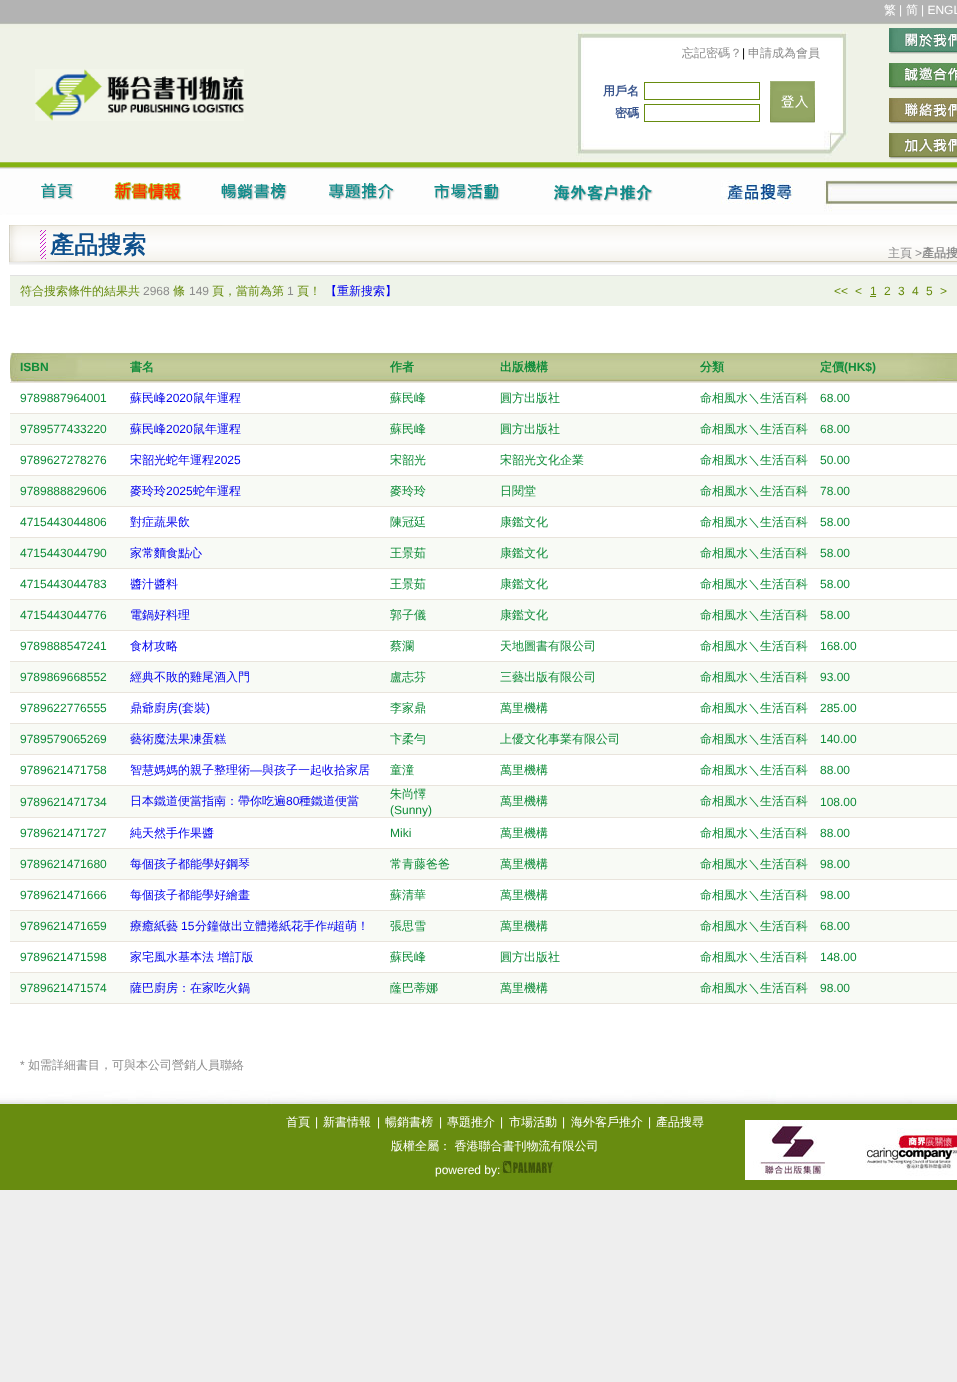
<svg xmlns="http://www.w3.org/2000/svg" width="957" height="1382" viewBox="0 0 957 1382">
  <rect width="100%" height="100%" fill="rgb(238,238,238)"/>
  <image x="0" y="0" width="957" height="215" href="pic1.png"/>
  <text x="884" y="14" font-family="WenQuanYi Zen Hei" font-size="12" font-weight="500" fill="rgb(255,255,255)">繁</text>
  <text x="899" y="14" font-family="Liberation Sans" font-size="12" fill="rgb(255,255,255)">|</text>
  <text x="906" y="14" font-family="WenQuanYi Zen Hei" font-size="12" font-weight="500" fill="rgb(255,255,255)">简</text>
  <text x="921" y="14" font-family="Liberation Sans" font-size="12" fill="rgb(255,255,255)">| ENGL</text>
  <image x="35" y="69" width="209" height="52" href="pic2.png"/>
  <text x="682" y="57" font-family="WenQuanYi Zen Hei" font-size="12" font-weight="500" fill="rgb(140,140,140)">忘記密碼？</text>
  <text x="742" y="57" font-family="Liberation Sans" font-size="12" fill="rgb(0,0,0)">|</text>
  <text x="748" y="57" font-family="WenQuanYi Zen Hei" font-size="12" font-weight="500" fill="rgb(140,140,140)">申請成為會員</text>
  <text x="603" y="95" font-family="WenQuanYi Zen Hei" font-size="12" font-weight="bold" fill="rgb(56,84,140)">用戶名</text>
  <rect x="644.5" y="82.5" width="115" height="17" fill="none" stroke="rgb(103,140,15)"/>
  <image x="770" y="81" width="45" height="42" href="pic3.png"/>
  <text x="615" y="117" font-family="WenQuanYi Zen Hei" font-size="12" font-weight="bold" fill="rgb(56,84,140)">密碼</text>
  <rect x="644.5" y="104.5" width="115" height="17" fill="none" stroke="rgb(103,140,15)"/>
  <image x="889" y="28" width="68" height="26" href="pic4.png"/>
  <image x="889" y="63" width="68" height="26" href="pic5.png"/>
  <image x="889" y="98" width="68" height="26" href="pic6.png"/>
  <image x="889" y="133" width="68" height="26" href="pic7.png"/>
  <image x="41" y="183" width="33" height="17" href="pic8.png"/>
  <image x="114" y="182" width="68" height="19" href="pic9.png"/>
  <image x="221" y="183" width="66" height="18" href="pic10.png"/>
  <image x="329" y="183" width="66" height="18" href="pic11.png"/>
  <image x="434" y="183" width="66" height="18" href="pic12.png"/>
  <image x="554" y="184" width="99" height="18" href="pic13.png"/>
  <image x="721" y="180" width="72" height="24" href="pic14.png"/>
  <rect x="0" y="215" width="957" height="875" fill="rgb(255,255,255)"/>
  <image x="9" y="225" width="948" height="40" href="pic15.png"/>
  <text x="50" y="253" font-family="WenQuanYi Zen Hei" font-size="24" font-weight="bold" fill="rgb(15,80,140)">產品搜索</text>
  <text x="888" y="257" font-family="WenQuanYi Zen Hei" font-size="12" font-weight="500" fill="rgb(140,140,140)">主頁</text>
  <text x="915" y="257" font-family="Liberation Sans" font-size="12" fill="rgb(140,140,140)">&gt;</text>
  <text x="922" y="257" font-family="WenQuanYi Zen Hei" font-size="12" font-weight="bold" fill="rgb(140,140,140)">產品搜</text>
  <rect x="10" y="276" width="947" height="30" fill="rgb(238,243,233)"/>
  <rect x="10" y="275" width="947" height="1" fill="rgb(225,225,225)"/>
  <text x="20" y="295" font-family="WenQuanYi Zen Hei" font-size="12" font-weight="500" fill="rgb(103,140,15)">符合搜索條件的結果共</text>
  <text x="143" y="295" font-family="Liberation Sans" font-size="12" fill="rgb(140,140,140)">2968</text>
  <text x="173" y="295" font-family="WenQuanYi Zen Hei" font-size="12" font-weight="500" fill="rgb(103,140,15)">條</text>
  <text x="189" y="295" font-family="Liberation Sans" font-size="12" fill="rgb(140,140,140)">149</text>
  <text x="212" y="295" font-family="WenQuanYi Zen Hei" font-size="12" font-weight="500" fill="rgb(103,140,15)">頁，當前為第</text>
  <text x="287" y="295" font-family="Liberation Sans" font-size="12" fill="rgb(140,140,140)">1</text>
  <text x="297" y="295" font-family="WenQuanYi Zen Hei" font-size="12" font-weight="500" fill="rgb(103,140,15)">頁！</text>
  <text x="325" y="295" font-family="WenQuanYi Zen Hei" font-size="12" font-weight="500" fill="rgb(0,0,238)">【重新搜索】</text>
  <g font-family="Liberation Sans" font-size="12" fill="rgb(103,140,15)">
    <text x="834" y="295">&lt;&lt;</text>
    <text x="855" y="295">&lt;</text>
    <text x="870" y="295">1</text>
  </g>
  <rect x="870" y="296" width="6" height="1" fill="rgb(103,140,15)"/>
  <g font-family="Liberation Sans" font-size="12" fill="rgb(103,140,15)">
    <text x="884" y="295">2</text>
    <text x="898" y="295">3</text>
    <text x="912" y="295">4</text>
    <text x="926" y="295">5</text>
    <text x="940" y="295">&gt;</text>
  </g>
  <image x="890" y="352" width="67" height="30" href="pic16.png"/>
  <rect x="10" y="382" width="947" height="1" fill="rgb(233,228,220)"/>
  <image x="10" y="352" width="110" height="30" href="pic17.png"/>
  <text x="20" y="371" font-family="Liberation Sans" font-size="12" font-weight="bold" fill="rgb(15,140,57)">ISBN</text>
  <image x="120" y="352" width="260" height="30" href="pic18.png"/>
  <text x="130" y="371" font-family="WenQuanYi Zen Hei" font-size="12" font-weight="bold" fill="rgb(15,140,57)">書名</text>
  <image x="380" y="352" width="110" height="30" href="pic19.png"/>
  <text x="390" y="371" font-family="WenQuanYi Zen Hei" font-size="12" font-weight="bold" fill="rgb(15,140,57)">作者</text>
  <image x="490" y="352" width="200" height="30" href="pic20.png"/>
  <text x="500" y="371" font-family="WenQuanYi Zen Hei" font-size="12" font-weight="bold" fill="rgb(15,140,57)">出版機構</text>
  <image x="690" y="352" width="120" height="30" href="pic21.png"/>
  <text x="700" y="371" font-family="WenQuanYi Zen Hei" font-size="12" font-weight="bold" fill="rgb(15,140,57)">分類</text>
  <image x="810" y="352" width="80" height="30" href="pic22.png"/>
  <text x="820" y="371" font-family="WenQuanYi Zen Hei" font-size="12" font-weight="bold" fill="rgb(15,140,57)">定價</text>
  <text x="844" y="371" font-family="Liberation Sans" font-size="12" font-weight="bold" fill="rgb(15,140,57)">(HK$)</text>
  <text x="20" y="402" font-family="Liberation Sans" font-size="12" fill="rgb(15,140,57)">9789887964001</text>
  <text x="130" y="402" font-family="WenQuanYi Zen Hei" font-size="12" font-weight="500" fill="rgb(0,0,238)">蘇民峰</text>
  <text x="166" y="402" font-family="Liberation Sans" font-size="12" fill="rgb(0,0,238)">2020</text>
  <text x="193" y="402" font-family="WenQuanYi Zen Hei" font-size="12" font-weight="500" fill="rgb(0,0,238)">鼠年運程</text>
  <g font-family="WenQuanYi Zen Hei" font-size="12" font-weight="500" fill="rgb(15,140,57)">
    <text x="390" y="402">蘇民峰</text>
    <text x="500" y="402">圓方出版社</text>
    <text x="700" y="402">命相風水＼生活百科</text>
  </g>
  <text x="820" y="402" font-family="Liberation Sans" font-size="12" fill="rgb(15,140,57)">68.00</text>
  <rect x="10" y="413" width="947" height="1" fill="rgb(233,228,220)"/>
  <rect x="10" y="414" width="947" height="30" fill="rgb(248,250,245)"/>
  <text x="20" y="433" font-family="Liberation Sans" font-size="12" fill="rgb(15,140,57)">9789577433220</text>
  <text x="130" y="433" font-family="WenQuanYi Zen Hei" font-size="12" font-weight="500" fill="rgb(0,0,238)">蘇民峰</text>
  <text x="166" y="433" font-family="Liberation Sans" font-size="12" fill="rgb(0,0,238)">2020</text>
  <text x="193" y="433" font-family="WenQuanYi Zen Hei" font-size="12" font-weight="500" fill="rgb(0,0,238)">鼠年運程</text>
  <g font-family="WenQuanYi Zen Hei" font-size="12" font-weight="500" fill="rgb(15,140,57)">
    <text x="390" y="433">蘇民峰</text>
    <text x="500" y="433">圓方出版社</text>
    <text x="700" y="433">命相風水＼生活百科</text>
  </g>
  <text x="820" y="433" font-family="Liberation Sans" font-size="12" fill="rgb(15,140,57)">68.00</text>
  <rect x="10" y="444" width="947" height="1" fill="rgb(233,228,220)"/>
  <text x="20" y="464" font-family="Liberation Sans" font-size="12" fill="rgb(15,140,57)">9789627278276</text>
  <text x="130" y="464" font-family="WenQuanYi Zen Hei" font-size="12" font-weight="500" fill="rgb(0,0,238)">宋韶光蛇年運程</text>
  <text x="214" y="464" font-family="Liberation Sans" font-size="12" fill="rgb(0,0,238)">2025</text>
  <g font-family="WenQuanYi Zen Hei" font-size="12" font-weight="500" fill="rgb(15,140,57)">
    <text x="390" y="464">宋韶光</text>
    <text x="500" y="464">宋韶光文化企業</text>
    <text x="700" y="464">命相風水＼生活百科</text>
  </g>
  <text x="820" y="464" font-family="Liberation Sans" font-size="12" fill="rgb(15,140,57)">50.00</text>
  <rect x="10" y="475" width="947" height="1" fill="rgb(233,228,220)"/>
  <rect x="10" y="476" width="947" height="30" fill="rgb(248,250,245)"/>
  <text x="20" y="495" font-family="Liberation Sans" font-size="12" fill="rgb(15,140,57)">9789888829606</text>
  <text x="130" y="495" font-family="WenQuanYi Zen Hei" font-size="12" font-weight="500" fill="rgb(0,0,238)">麥玲玲</text>
  <text x="166" y="495" font-family="Liberation Sans" font-size="12" fill="rgb(0,0,238)">2025</text>
  <text x="193" y="495" font-family="WenQuanYi Zen Hei" font-size="12" font-weight="500" fill="rgb(0,0,238)">蛇年運程</text>
  <g font-family="WenQuanYi Zen Hei" font-size="12" font-weight="500" fill="rgb(15,140,57)">
    <text x="390" y="495">麥玲玲</text>
    <text x="500" y="495">日閱堂</text>
    <text x="700" y="495">命相風水＼生活百科</text>
  </g>
  <text x="820" y="495" font-family="Liberation Sans" font-size="12" fill="rgb(15,140,57)">78.00</text>
  <rect x="10" y="506" width="947" height="1" fill="rgb(233,228,220)"/>
  <text x="20" y="526" font-family="Liberation Sans" font-size="12" fill="rgb(15,140,57)">4715443044806</text>
  <text x="130" y="526" font-family="WenQuanYi Zen Hei" font-size="12" font-weight="500" fill="rgb(0,0,238)">對症蔬果飲</text>
  <g font-family="WenQuanYi Zen Hei" font-size="12" font-weight="500" fill="rgb(15,140,57)">
    <text x="390" y="526">陳冠廷</text>
    <text x="500" y="526">康鑑文化</text>
    <text x="700" y="526">命相風水＼生活百科</text>
  </g>
  <text x="820" y="526" font-family="Liberation Sans" font-size="12" fill="rgb(15,140,57)">58.00</text>
  <rect x="10" y="537" width="947" height="1" fill="rgb(233,228,220)"/>
  <rect x="10" y="538" width="947" height="30" fill="rgb(248,250,245)"/>
  <text x="20" y="557" font-family="Liberation Sans" font-size="12" fill="rgb(15,140,57)">4715443044790</text>
  <text x="130" y="557" font-family="WenQuanYi Zen Hei" font-size="12" font-weight="500" fill="rgb(0,0,238)">家常麵食點心</text>
  <g font-family="WenQuanYi Zen Hei" font-size="12" font-weight="500" fill="rgb(15,140,57)">
    <text x="390" y="557">王景茹</text>
    <text x="500" y="557">康鑑文化</text>
    <text x="700" y="557">命相風水＼生活百科</text>
  </g>
  <text x="820" y="557" font-family="Liberation Sans" font-size="12" fill="rgb(15,140,57)">58.00</text>
  <rect x="10" y="568" width="947" height="1" fill="rgb(233,228,220)"/>
  <text x="20" y="588" font-family="Liberation Sans" font-size="12" fill="rgb(15,140,57)">4715443044783</text>
  <text x="130" y="588" font-family="WenQuanYi Zen Hei" font-size="12" font-weight="500" fill="rgb(0,0,238)">醬汁醬料</text>
  <g font-family="WenQuanYi Zen Hei" font-size="12" font-weight="500" fill="rgb(15,140,57)">
    <text x="390" y="588">王景茹</text>
    <text x="500" y="588">康鑑文化</text>
    <text x="700" y="588">命相風水＼生活百科</text>
  </g>
  <text x="820" y="588" font-family="Liberation Sans" font-size="12" fill="rgb(15,140,57)">58.00</text>
  <rect x="10" y="599" width="947" height="1" fill="rgb(233,228,220)"/>
  <rect x="10" y="600" width="947" height="30" fill="rgb(248,250,245)"/>
  <text x="20" y="619" font-family="Liberation Sans" font-size="12" fill="rgb(15,140,57)">4715443044776</text>
  <text x="130" y="619" font-family="WenQuanYi Zen Hei" font-size="12" font-weight="500" fill="rgb(0,0,238)">電鍋好料理</text>
  <g font-family="WenQuanYi Zen Hei" font-size="12" font-weight="500" fill="rgb(15,140,57)">
    <text x="390" y="619">郭子儀</text>
    <text x="500" y="619">康鑑文化</text>
    <text x="700" y="619">命相風水＼生活百科</text>
  </g>
  <text x="820" y="619" font-family="Liberation Sans" font-size="12" fill="rgb(15,140,57)">58.00</text>
  <rect x="10" y="630" width="947" height="1" fill="rgb(233,228,220)"/>
  <text x="20" y="650" font-family="Liberation Sans" font-size="12" fill="rgb(15,140,57)">9789888547241</text>
  <text x="130" y="650" font-family="WenQuanYi Zen Hei" font-size="12" font-weight="500" fill="rgb(0,0,238)">食材攻略</text>
  <g font-family="WenQuanYi Zen Hei" font-size="12" font-weight="500" fill="rgb(15,140,57)">
    <text x="390" y="650">蔡瀾</text>
    <text x="500" y="650">天地圖書有限公司</text>
    <text x="700" y="650">命相風水＼生活百科</text>
  </g>
  <text x="820" y="650" font-family="Liberation Sans" font-size="12" fill="rgb(15,140,57)">168.00</text>
  <rect x="10" y="661" width="947" height="1" fill="rgb(233,228,220)"/>
  <rect x="10" y="662" width="947" height="30" fill="rgb(248,250,245)"/>
  <text x="20" y="681" font-family="Liberation Sans" font-size="12" fill="rgb(15,140,57)">9789869668552</text>
  <text x="130" y="681" font-family="WenQuanYi Zen Hei" font-size="12" font-weight="500" fill="rgb(0,0,238)">經典不敗的雞尾酒入門</text>
  <g font-family="WenQuanYi Zen Hei" font-size="12" font-weight="500" fill="rgb(15,140,57)">
    <text x="390" y="681">盧志芬</text>
    <text x="500" y="681">三藝出版有限公司</text>
    <text x="700" y="681">命相風水＼生活百科</text>
  </g>
  <text x="820" y="681" font-family="Liberation Sans" font-size="12" fill="rgb(15,140,57)">93.00</text>
  <rect x="10" y="692" width="947" height="1" fill="rgb(233,228,220)"/>
  <text x="20" y="712" font-family="Liberation Sans" font-size="12" fill="rgb(15,140,57)">9789622776555</text>
  <text x="130" y="712" font-family="WenQuanYi Zen Hei" font-size="12" font-weight="500" fill="rgb(0,0,238)">鼎爺廚房</text>
  <text x="178" y="712" font-family="Liberation Sans" font-size="12" fill="rgb(0,0,238)">(</text>
  <text x="182" y="712" font-family="WenQuanYi Zen Hei" font-size="12" font-weight="500" fill="rgb(0,0,238)">套裝</text>
  <text x="206" y="712" font-family="Liberation Sans" font-size="12" fill="rgb(0,0,238)">)</text>
  <g font-family="WenQuanYi Zen Hei" font-size="12" font-weight="500" fill="rgb(15,140,57)">
    <text x="390" y="712">李家鼎</text>
    <text x="500" y="712">萬里機構</text>
    <text x="700" y="712">命相風水＼生活百科</text>
  </g>
  <text x="820" y="712" font-family="Liberation Sans" font-size="12" fill="rgb(15,140,57)">285.00</text>
  <rect x="10" y="723" width="947" height="1" fill="rgb(233,228,220)"/>
  <rect x="10" y="724" width="947" height="30" fill="rgb(248,250,245)"/>
  <text x="20" y="743" font-family="Liberation Sans" font-size="12" fill="rgb(15,140,57)">9789579065269</text>
  <text x="130" y="743" font-family="WenQuanYi Zen Hei" font-size="12" font-weight="500" fill="rgb(0,0,238)">藝術魔法果凍蛋糕</text>
  <g font-family="WenQuanYi Zen Hei" font-size="12" font-weight="500" fill="rgb(15,140,57)">
    <text x="390" y="743">卞柔勻</text>
    <text x="500" y="743">上優文化事業有限公司</text>
    <text x="700" y="743">命相風水＼生活百科</text>
  </g>
  <text x="820" y="743" font-family="Liberation Sans" font-size="12" fill="rgb(15,140,57)">140.00</text>
  <rect x="10" y="754" width="947" height="1" fill="rgb(233,228,220)"/>
  <text x="20" y="774" font-family="Liberation Sans" font-size="12" fill="rgb(15,140,57)">9789621471758</text>
  <text x="130" y="774" font-family="WenQuanYi Zen Hei" font-size="12" font-weight="500" fill="rgb(0,0,238)">智慧媽媽的親子整理術</text>
  <text x="250" y="774" font-family="Liberation Sans" font-size="12" fill="rgb(0,0,238)">—</text>
  <text x="262" y="774" font-family="WenQuanYi Zen Hei" font-size="12" font-weight="500" fill="rgb(0,0,238)">與孩子一起收拾家居</text>
  <g font-family="WenQuanYi Zen Hei" font-size="12" font-weight="500" fill="rgb(15,140,57)">
    <text x="390" y="774">童潼</text>
    <text x="500" y="774">萬里機構</text>
    <text x="700" y="774">命相風水＼生活百科</text>
  </g>
  <text x="820" y="774" font-family="Liberation Sans" font-size="12" fill="rgb(15,140,57)">88.00</text>
  <rect x="10" y="785" width="947" height="1" fill="rgb(233,228,220)"/>
  <rect x="10" y="786" width="947" height="31" fill="rgb(248,250,245)"/>
  <text x="20" y="806" font-family="Liberation Sans" font-size="12" fill="rgb(15,140,57)">9789621471734</text>
  <text x="130" y="805" font-family="WenQuanYi Zen Hei" font-size="12" font-weight="500" fill="rgb(0,0,238)">日本鐵道便當指南：帶你吃遍</text>
  <text x="286" y="805" font-family="Liberation Sans" font-size="12" fill="rgb(0,0,238)">80</text>
  <text x="299" y="805" font-family="WenQuanYi Zen Hei" font-size="12" font-weight="500" fill="rgb(0,0,238)">種鐵道便當</text>
  <text x="390" y="798" font-family="WenQuanYi Zen Hei" font-size="12" font-weight="500" fill="rgb(15,140,57)">朱尚懌</text>
  <text x="390" y="814" font-family="Liberation Sans" font-size="12" fill="rgb(15,140,57)">(Sunny)</text>
  <g font-family="WenQuanYi Zen Hei" font-size="12" font-weight="500" fill="rgb(15,140,57)">
    <text x="500" y="805">萬里機構</text>
    <text x="700" y="805">命相風水＼生活百科</text>
  </g>
  <text x="820" y="806" font-family="Liberation Sans" font-size="12" fill="rgb(15,140,57)">108.00</text>
  <rect x="10" y="817" width="947" height="1" fill="rgb(233,228,220)"/>
  <text x="20" y="837" font-family="Liberation Sans" font-size="12" fill="rgb(15,140,57)">9789621471727</text>
  <text x="130" y="837" font-family="WenQuanYi Zen Hei" font-size="12" font-weight="500" fill="rgb(0,0,238)">純天然手作果醬</text>
  <text x="390" y="837" font-family="Liberation Sans" font-size="12" fill="rgb(15,140,57)">Miki</text>
  <g font-family="WenQuanYi Zen Hei" font-size="12" font-weight="500" fill="rgb(15,140,57)">
    <text x="500" y="837">萬里機構</text>
    <text x="700" y="837">命相風水＼生活百科</text>
  </g>
  <text x="820" y="837" font-family="Liberation Sans" font-size="12" fill="rgb(15,140,57)">88.00</text>
  <rect x="10" y="848" width="947" height="1" fill="rgb(233,228,220)"/>
  <rect x="10" y="849" width="947" height="30" fill="rgb(248,250,245)"/>
  <text x="20" y="868" font-family="Liberation Sans" font-size="12" fill="rgb(15,140,57)">9789621471680</text>
  <text x="130" y="868" font-family="WenQuanYi Zen Hei" font-size="12" font-weight="500" fill="rgb(0,0,238)">每個孩子都能學好鋼琴</text>
  <g font-family="WenQuanYi Zen Hei" font-size="12" font-weight="500" fill="rgb(15,140,57)">
    <text x="390" y="868">常青藤爸爸</text>
    <text x="500" y="868">萬里機構</text>
    <text x="700" y="868">命相風水＼生活百科</text>
  </g>
  <text x="820" y="868" font-family="Liberation Sans" font-size="12" fill="rgb(15,140,57)">98.00</text>
  <rect x="10" y="879" width="947" height="1" fill="rgb(233,228,220)"/>
  <text x="20" y="899" font-family="Liberation Sans" font-size="12" fill="rgb(15,140,57)">9789621471666</text>
  <text x="130" y="899" font-family="WenQuanYi Zen Hei" font-size="12" font-weight="500" fill="rgb(0,0,238)">每個孩子都能學好繪畫</text>
  <g font-family="WenQuanYi Zen Hei" font-size="12" font-weight="500" fill="rgb(15,140,57)">
    <text x="390" y="899">蘇清華</text>
    <text x="500" y="899">萬里機構</text>
    <text x="700" y="899">命相風水＼生活百科</text>
  </g>
  <text x="820" y="899" font-family="Liberation Sans" font-size="12" fill="rgb(15,140,57)">98.00</text>
  <rect x="10" y="910" width="947" height="1" fill="rgb(233,228,220)"/>
  <rect x="10" y="911" width="947" height="30" fill="rgb(248,250,245)"/>
  <text x="20" y="930" font-family="Liberation Sans" font-size="12" fill="rgb(15,140,57)">9789621471659</text>
  <text x="130" y="930" font-family="WenQuanYi Zen Hei" font-size="12" font-weight="500" fill="rgb(0,0,238)">療癒紙藝</text>
  <text x="181" y="930" font-family="Liberation Sans" font-size="12" fill="rgb(0,0,238)">15</text>
  <text x="195" y="930" font-family="WenQuanYi Zen Hei" font-size="12" font-weight="500" fill="rgb(0,0,238)">分鐘做出立體捲紙花手作</text>
  <text x="327" y="930" font-family="Liberation Sans" font-size="12" fill="rgb(0,0,238)">#</text>
  <text x="333" y="930" font-family="WenQuanYi Zen Hei" font-size="12" font-weight="500" fill="rgb(0,0,238)">超萌！</text>
  <g font-family="WenQuanYi Zen Hei" font-size="12" font-weight="500" fill="rgb(15,140,57)">
    <text x="390" y="930">張思雪</text>
    <text x="500" y="930">萬里機構</text>
    <text x="700" y="930">命相風水＼生活百科</text>
  </g>
  <text x="820" y="930" font-family="Liberation Sans" font-size="12" fill="rgb(15,140,57)">68.00</text>
  <rect x="10" y="941" width="947" height="1" fill="rgb(233,228,220)"/>
  <text x="20" y="961" font-family="Liberation Sans" font-size="12" fill="rgb(15,140,57)">9789621471598</text>
  <text x="130" y="961" font-family="WenQuanYi Zen Hei" font-size="12" font-weight="500" fill="rgb(0,0,238)">家宅風水基本法 增訂版</text>
  <g font-family="WenQuanYi Zen Hei" font-size="12" font-weight="500" fill="rgb(15,140,57)">
    <text x="390" y="961">蘇民峰</text>
    <text x="500" y="961">圓方出版社</text>
    <text x="700" y="961">命相風水＼生活百科</text>
  </g>
  <text x="820" y="961" font-family="Liberation Sans" font-size="12" fill="rgb(15,140,57)">148.00</text>
  <rect x="10" y="972" width="947" height="1" fill="rgb(233,228,220)"/>
  <rect x="10" y="973" width="947" height="30" fill="rgb(248,250,245)"/>
  <text x="20" y="992" font-family="Liberation Sans" font-size="12" fill="rgb(15,140,57)">9789621471574</text>
  <text x="130" y="992" font-family="WenQuanYi Zen Hei" font-size="12" font-weight="500" fill="rgb(0,0,238)">薩巴廚房：在家吃火鍋</text>
  <g font-family="WenQuanYi Zen Hei" font-size="12" font-weight="500" fill="rgb(15,140,57)">
    <text x="390" y="992">蕯巴蒂娜</text>
    <text x="500" y="992">萬里機構</text>
    <text x="700" y="992">命相風水＼生活百科</text>
  </g>
  <text x="820" y="992" font-family="Liberation Sans" font-size="12" fill="rgb(15,140,57)">98.00</text>
  <rect x="10" y="1003" width="947" height="1" fill="rgb(233,228,220)"/>
  <text x="20" y="1069" font-family="Liberation Sans" font-size="12" fill="rgb(140,140,140)">*</text>
  <text x="28" y="1069" font-family="WenQuanYi Zen Hei" font-size="12" font-weight="500" fill="rgb(140,140,140)">如需詳細書目，可與本公司營銷人員聯絡</text>
  <image x="0" y="1090" width="957" height="100" href="pic23.png"/>
  <text x="286" y="1126" font-family="WenQuanYi Zen Hei" font-size="12" font-weight="500" fill="rgb(255,255,255)">首頁</text>
  <text x="315" y="1126" font-family="Liberation Sans" font-size="12" fill="rgb(255,255,255)">|</text>
  <text x="323" y="1126" font-family="WenQuanYi Zen Hei" font-size="12" font-weight="500" fill="rgb(255,255,255)">新書情報</text>
  <text x="377" y="1126" font-family="Liberation Sans" font-size="12" fill="rgb(255,255,255)">|</text>
  <text x="385" y="1126" font-family="WenQuanYi Zen Hei" font-size="12" font-weight="500" fill="rgb(255,255,255)">暢銷書榜</text>
  <text x="439" y="1126" font-family="Liberation Sans" font-size="12" fill="rgb(255,255,255)">|</text>
  <text x="447" y="1126" font-family="WenQuanYi Zen Hei" font-size="12" font-weight="500" fill="rgb(255,255,255)">專題推介</text>
  <text x="500" y="1126" font-family="Liberation Sans" font-size="12" fill="rgb(255,255,255)">|</text>
  <text x="509" y="1126" font-family="WenQuanYi Zen Hei" font-size="12" font-weight="500" fill="rgb(255,255,255)">市場活動</text>
  <text x="562" y="1126" font-family="Liberation Sans" font-size="12" fill="rgb(255,255,255)">|</text>
  <text x="571" y="1126" font-family="WenQuanYi Zen Hei" font-size="12" font-weight="500" fill="rgb(255,255,255)">海外客戶推介</text>
  <text x="648" y="1126" font-family="Liberation Sans" font-size="12" fill="rgb(255,255,255)">|</text>
  <text x="656" y="1126" font-family="WenQuanYi Zen Hei" font-size="12" font-weight="500" fill="rgb(255,255,255)">產品搜尋</text>
  <image x="745" y="1120" width="212" height="60" href="pic24.png"/>
  <text x="391" y="1150" font-family="WenQuanYi Zen Hei" font-size="12" font-weight="500" fill="rgb(255,255,255)">版權全屬： 香港聯合書刊物流有限公司</text>
  <text x="435" y="1174" font-family="Liberation Sans" font-size="12" fill="rgb(255,255,255)">powered by:</text>
  <image x="501" y="1160" width="53" height="14" href="pic25.png"/>
</svg>
